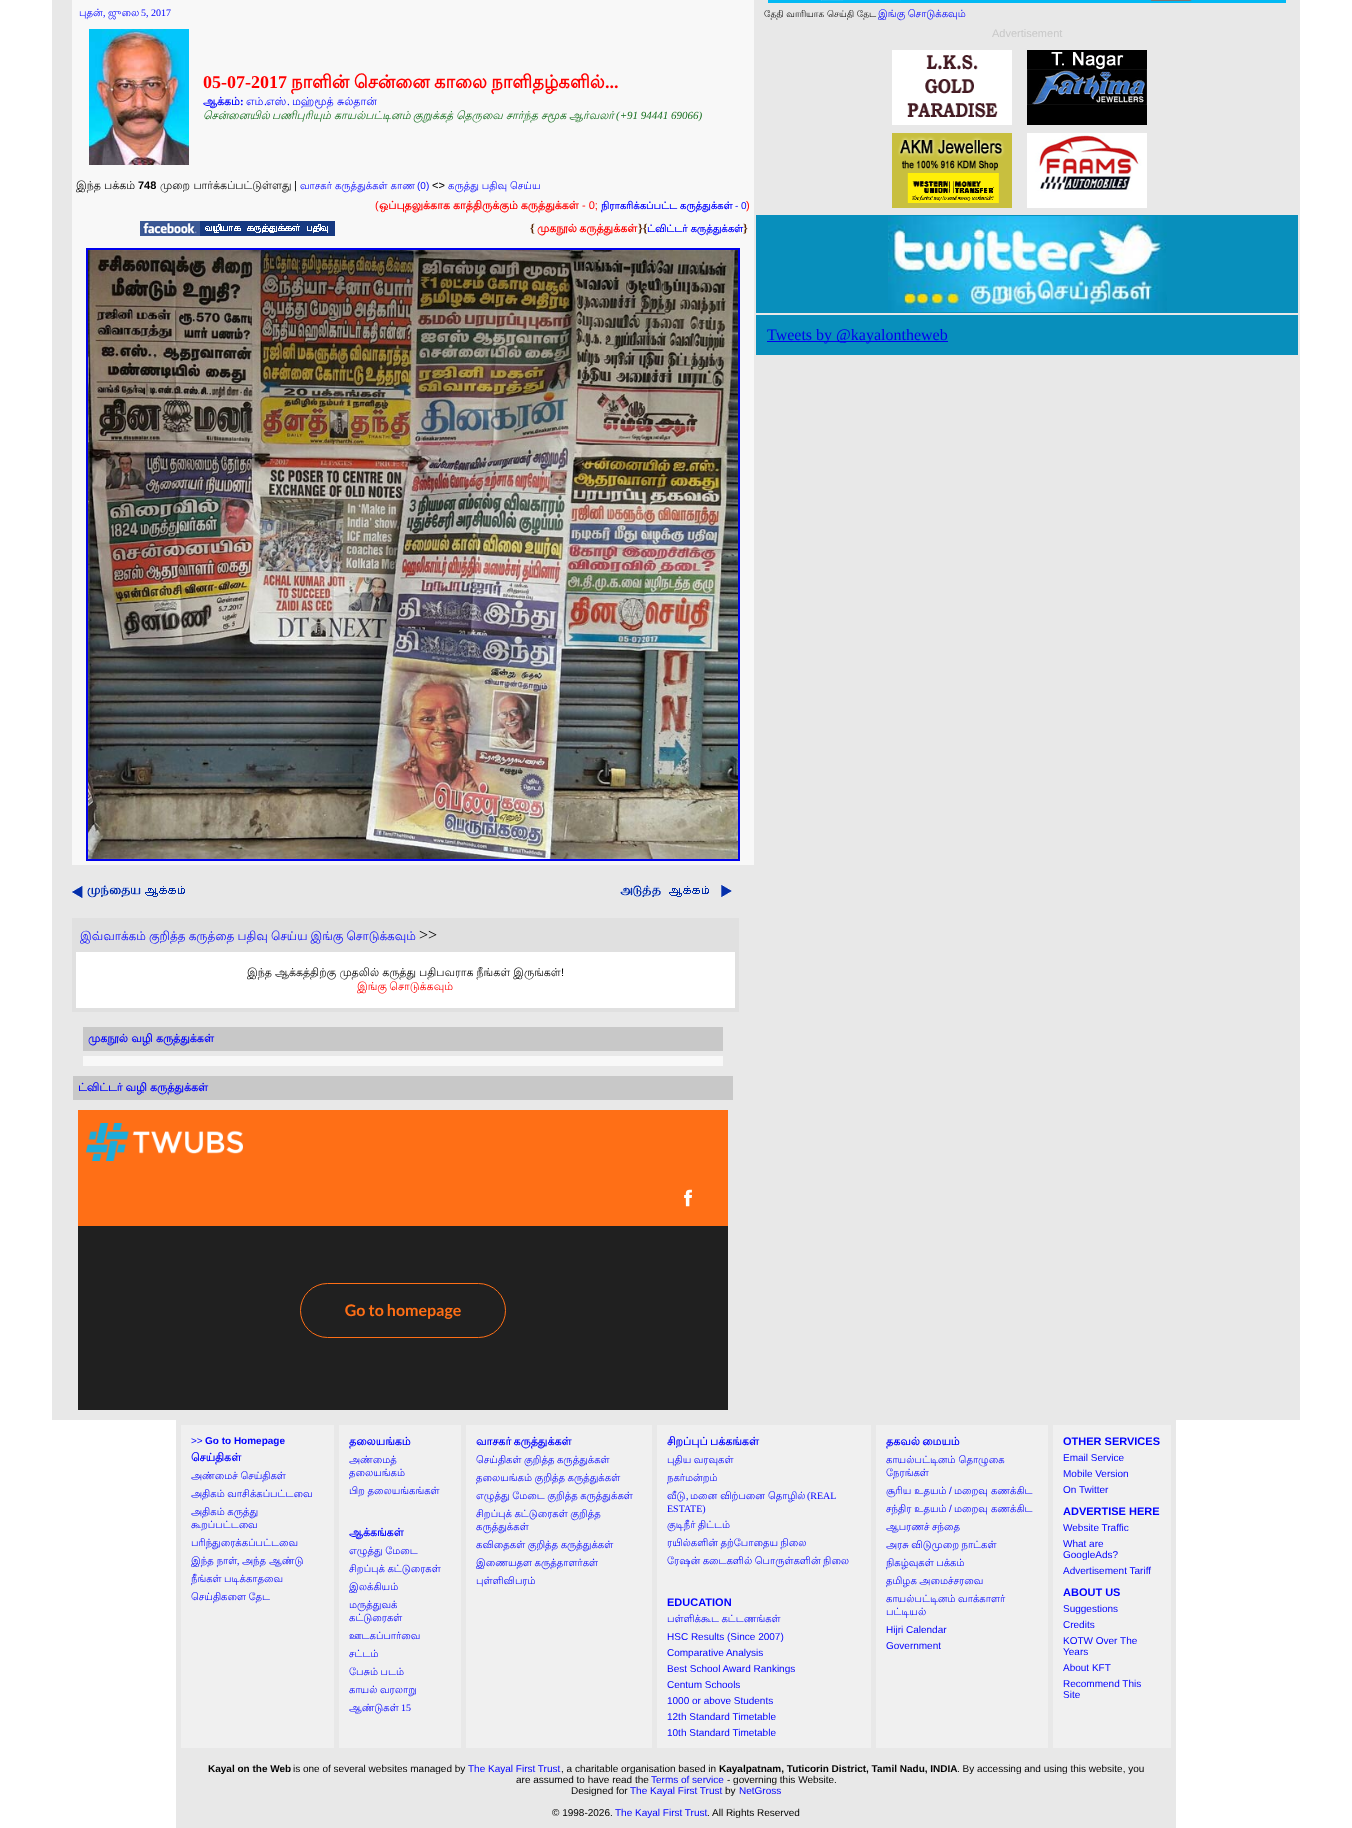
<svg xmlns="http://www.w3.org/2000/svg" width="1352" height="1828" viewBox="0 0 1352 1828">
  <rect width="100%" height="100%" fill="rgb(255,255,255)"/>
  <rect x="52" y="0" width="1248" height="1420" fill="rgb(232,232,232)"/>
  <rect x="72" y="0" width="682" height="865" fill="rgb(248,248,248)"/>
  <text x="79" y="16" font-family="Lohit Tamil" font-size="10" fill="rgb(0,0,255)">புதன்</text>
  <text x="103" y="16" font-family="Liberation Serif" font-size="10" fill="rgb(0,0,255)">,</text>
  <text x="108" y="16" font-family="Lohit Tamil" font-size="10" fill="rgb(0,0,255)">ஜுலை</text>
  <text x="141" y="16" font-family="Liberation Serif" font-size="10" fill="rgb(0,0,255)">5, 2017</text>
  <image x="89" y="29" width="100" height="136" href="pic1.png"/>
  <text x="203" y="88" font-family="Liberation Serif" font-size="18" font-weight="bold" fill="rgb(255,0,0)">05-07-2017</text>
  <text x="291" y="88" word-spacing="-1" font-family="Lohit Tamil" font-size="18" font-weight="bold" fill="rgb(255,0,0)">நாளின் சென்னை காலை நாளிதழ்களில்</text>
  <text x="605" y="88" font-family="Liberation Serif" font-size="18" font-weight="bold" fill="rgb(255,0,0)">...</text>
  <text x="203" y="105" font-family="Lohit Tamil" font-size="11" font-weight="bold" fill="rgb(0,0,255)">ஆக்கம்</text>
  <text x="240" y="105" font-family="Liberation Serif" font-size="11" font-weight="bold" fill="rgb(0,0,255)">:</text>
  <text x="246" y="105" font-family="Lohit Tamil" font-size="11" fill="rgb(0,0,255)">எம்</text>
  <text x="264" y="105" font-family="Liberation Serif" font-size="11" fill="rgb(0,0,255)">.</text>
  <text x="266" y="105" font-family="Lohit Tamil" font-size="11" fill="rgb(0,0,255)">எஸ்</text>
  <text x="287" y="105" font-family="Liberation Serif" font-size="11" fill="rgb(0,0,255)">.</text>
  <text x="292" y="105" font-family="Lohit Tamil" font-size="11" fill="rgb(0,0,255)">மஹ்மூத் சுல்தான்</text>
  <g font-family="Lohit Tamil" font-size="11" font-style="italic" fill="rgb(18,108,27)">
    <text x="203" y="119">சென்னையில்</text>
    <text x="272" y="119">பணிபுரியும்</text>
    <text x="334" y="119">காயல்பட்டினம்</text>
    <text x="413" y="119">குறுக்கத்</text>
    <text x="456" y="119">தெருவை</text>
    <text x="506" y="119">சார்ந்த</text>
    <text x="541" y="119">சமூக</text>
    <text x="569" y="119">ஆர்வலர்</text>
  </g>
  <text x="616" y="119" font-family="Liberation Serif" font-size="11" font-style="italic" fill="rgb(18,108,27)">(+91 94441 69066)</text>
  <text x="76" y="189" word-spacing="-0.25" font-family="Lohit Tamil" font-size="11" fill="rgb(0,0,0)">இந்த பக்கம்</text>
  <text x="138" y="189" font-family="Liberation Sans" font-size="11" font-weight="bold" fill="rgb(0,0,0)">748</text>
  <text x="160" y="189" font-family="Lohit Tamil" font-size="11" fill="rgb(0,0,0)">முறை பார்க்கப்பட்டுள்ளது</text>
  <text x="294" y="189" font-family="Liberation Sans" font-size="11" fill="rgb(0,0,0)">|</text>
  <text x="300" y="189" font-family="Lohit Tamil" font-size="10" fill="rgb(0,0,255)">வாசகர் கருத்துக்கள் காண</text>
  <text x="417" y="189" font-family="Liberation Sans" font-size="10" fill="rgb(0,0,255)">(0)</text>
  <text x="432" y="189" font-family="Liberation Sans" font-size="11" fill="rgb(0,0,0)">&lt;&gt;</text>
  <text x="448" y="189" font-family="Lohit Tamil" font-size="10" fill="rgb(0,0,255)">கருத்து பதிவு செய்ய</text>
  <text x="375" y="209" font-family="Liberation Sans" font-size="11" fill="rgb(255,0,0)">(</text>
  <text x="379" y="209" word-spacing="-0.25" font-family="Lohit Tamil" font-size="11" font-weight="bold" fill="rgb(255,0,0)">ஒப்புதலுக்காக காத்திருக்கும் கருத்துக்கள்</text>
  <text x="582" y="209" font-family="Liberation Sans" font-size="11" fill="rgb(255,0,0)">- 0;</text>
  <text x="601" y="209" font-family="Lohit Tamil" font-size="10" font-weight="bold" fill="rgb(0,0,255)">நிராகரிக்கப்பட்ட கருத்துக்கள்</text>
  <text x="735" y="209" font-family="Liberation Sans" font-size="10" fill="rgb(0,0,255)">- 0</text>
  <text x="746" y="209" font-family="Liberation Sans" font-size="11" fill="rgb(255,0,0)">)</text>
  <image x="140" y="221" width="195" height="15" href="pic2.png"/>
  <text x="530" y="232" font-family="Liberation Serif" font-size="12" font-weight="bold" fill="rgb(88,40,7)">{</text>
  <text x="537" y="232" word-spacing="-1" font-family="Lohit Tamil" font-size="11" font-weight="bold" fill="rgb(255,0,0)">முகநூல் கருத்துக்கள்</text>
  <text x="638" y="232" font-family="Liberation Serif" font-size="12" font-weight="bold" fill="rgb(88,40,7)">}{</text>
  <text x="647" y="232" font-family="Lohit Tamil" font-size="10" font-weight="bold" fill="rgb(0,0,255)">ட்விட்டர் கருத்துக்கள்</text>
  <text x="743" y="232" font-family="Liberation Serif" font-size="12" font-weight="bold" fill="rgb(88,40,7)">}</text>
  <rect x="87" y="249" width="652" height="611" fill="none" stroke="rgb(0,0,238)" stroke-width="2"/>
  <image x="88" y="250" width="650" height="609" href="pic3.png"/>
  <image x="72" y="885" width="113" height="13" href="pic4.png"/>
  <image x="620" y="885" width="112" height="12" href="pic5.png"/>
  <rect x="72" y="918" width="667" height="94" fill="rgb(224,224,224)"/>
  <g font-family="Lohit Tamil" font-size="12" fill="rgb(0,0,255)">
    <text x="80" y="940">இவ்வாக்கம்</text>
    <text x="149" y="940" word-spacing="-0.5">குறித்த கருத்தை பதிவு செய்ய இங்கு சொடுக்கவும்</text>
  </g>
  <text x="419" y="940" font-family="Liberation Serif" font-size="16" fill="rgb(0,0,0)">&gt;&gt;</text>
  <rect x="76" y="952" width="659" height="56" fill="rgb(255,255,255)"/>
  <text x="247" y="976" word-spacing="-0.25" font-family="Lohit Tamil" font-size="11" fill="rgb(0,0,0)">இந்த ஆக்கத்திற்கு முதலில் கருத்து பதிபவராக நீங்கள் இருங்கள்</text>
  <text x="561" y="976" font-family="Liberation Sans" font-size="11" fill="rgb(0,0,0)">!</text>
  <text x="357" y="990" word-spacing="-1" font-family="Lohit Tamil" font-size="11" fill="rgb(255,0,0)">இங்கு சொடுக்கவும்</text>
  <rect x="83" y="1027" width="640" height="24" fill="rgb(200,200,200)"/>
  <text x="88" y="1042" font-family="Lohit Tamil" font-size="11" font-weight="bold" fill="rgb(0,0,255)">முகநூல் வழி கருத்துக்கள்</text>
  <rect x="83" y="1056" width="640" height="10" fill="rgb(248,248,248)"/>
  <rect x="73" y="1076" width="660" height="24" fill="rgb(200,200,200)"/>
  <text x="78" y="1091" word-spacing="-0.25" font-family="Lohit Tamil" font-size="11" font-weight="bold" fill="rgb(0,0,255)">ட்விட்டர் வழி கருத்துக்கள்</text>
  <image x="78" y="1110" width="650" height="300" href="pic6.png"/>
  <rect x="768" y="0" width="518" height="3" fill="rgb(2,185,244)"/>
  <image x="821" y="0" width="80" height="1" href="pic7.png"/>
  <rect x="1150.5" y="-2.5" width="41" height="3" rx="1.5" fill="none" stroke="rgb(118,118,118)"/>
  <text x="764" y="17" font-family="Lohit Tamil" font-size="9" fill="rgb(0,0,0)">தேதி வாரியாக செய்தி தேட</text>
  <text x="878" y="17" word-spacing="-0.5" font-family="Lohit Tamil" font-size="10" fill="rgb(0,0,255)">இங்கு சொடுக்கவும்</text>
  <text x="992" y="37" font-family="Liberation Sans" font-size="11" fill="rgb(200,200,200)">Advertisement</text>
  <image x="892" y="50" width="120" height="75" href="pic8.png"/>
  <image x="1027" y="50" width="120" height="75" href="pic9.png"/>
  <image x="892" y="133" width="120" height="75" href="pic10.png"/>
  <image x="1027" y="133" width="120" height="75" href="pic11.png"/>
  <rect x="756" y="215" width="542" height="98" fill="rgb(8,143,188)"/>
  <image x="888" y="216" width="279" height="96" href="pic12.png"/>
  <rect x="756" y="315" width="542" height="40" fill="rgb(8,143,188)"/>
  <rect x="767" y="341" width="181" height="1" fill="rgb(0,0,238)"/>
  <text x="767" y="340" font-family="Liberation Serif" font-size="16" fill="rgb(0,0,238)">Tweets by @kayalontheweb</text>
  <rect x="176" y="1420" width="1000" height="408" fill="rgb(232,232,232)"/>
  <rect x="181" y="1425" width="153" height="323" fill="rgb(240,240,240)"/>
  <text x="191" y="1444" font-family="Liberation Sans" font-size="10" fill="rgb(0,0,255)">&gt;&gt;</text>
  <text x="205" y="1444" font-family="Liberation Sans" font-size="10" font-weight="bold" fill="rgb(0,0,255)">Go to Homepage</text>
  <text x="191" y="1461" font-family="Lohit Tamil" font-size="11" font-weight="bold" fill="rgb(0,0,255)">செய்திகள்</text>
  <g font-family="Lohit Tamil" font-size="10" fill="rgb(0,0,255)">
    <text>
      <tspan x="191" y="1479" word-spacing="-0.5">அண்மைச் செய்திகள்</tspan>
      <tspan x="191" y="1497" word-spacing="-0.5">அதிகம் வாசிக்கப்பட்டவை</tspan>
      <tspan x="191" y="1515" word-spacing="-0.5">அதிகம் கருத்து</tspan>
      <tspan x="191" y="1528">கூறப்பட்டவை</tspan>
      <tspan x="191" y="1546">பரிந்துரைக்கப்பட்டவை</tspan>
      <tspan x="191" y="1564">இந்த நாள்</tspan>
    </text>
  </g>
  <text x="237" y="1564" font-family="Liberation Serif" font-size="10" fill="rgb(0,0,255)">,</text>
  <g font-family="Lohit Tamil" font-size="10" fill="rgb(0,0,255)">
    <text x="242" y="1564">அந்த ஆண்டு</text>
    <text>
      <tspan x="191" y="1582" word-spacing="-0.5">நீங்கள் படிக்காதவை</tspan>
      <tspan x="191" y="1600" word-spacing="-0.5">செய்திகளை தேட</tspan>
    </text>
  </g>
  <rect x="339" y="1425" width="122" height="323" fill="rgb(240,240,240)"/>
  <text x="349" y="1445" font-family="Lohit Tamil" font-size="11" font-weight="bold" fill="rgb(0,0,255)">தலையங்கம்</text>
  <g font-family="Lohit Tamil" font-size="10" fill="rgb(0,0,255)">
    <text>
      <tspan x="349" y="1463">அண்மைத்</tspan>
      <tspan x="349" y="1476">தலையங்கம்</tspan>
      <tspan x="349" y="1494" word-spacing="-0.5">பிற தலையங்கங்கள்</tspan>
    </text>
  </g>
  <text x="349" y="1536" font-family="Lohit Tamil" font-size="11" font-weight="bold" fill="rgb(0,0,255)">ஆக்கங்கள்</text>
  <g font-family="Lohit Tamil" font-size="10" fill="rgb(0,0,255)">
    <text>
      <tspan x="349" y="1554" word-spacing="-0.5">எழுத்து மேடை</tspan>
      <tspan x="349" y="1572" word-spacing="-0.5">சிறப்புக் கட்டுரைகள்</tspan>
      <tspan x="349" y="1590">இலக்கியம்</tspan>
      <tspan x="349" y="1608">மருத்துவக்</tspan>
      <tspan x="349" y="1621">கட்டுரைகள்</tspan>
      <tspan x="349" y="1639">ஊடகப்பார்வை</tspan>
      <tspan x="349" y="1657">சட்டம்</tspan>
      <tspan x="349" y="1675" word-spacing="-0.5">பேசும் படம்</tspan>
      <tspan x="349" y="1693" word-spacing="-0.5">காயல் வரலாறு</tspan>
      <tspan x="349" y="1711">ஆண்டுகள்</tspan>
    </text>
  </g>
  <text x="401" y="1711" font-family="Liberation Serif" font-size="10" fill="rgb(0,0,255)">15</text>
  <rect x="466" y="1425" width="186" height="323" fill="rgb(240,240,240)"/>
  <text x="476" y="1445" word-spacing="-1" font-family="Lohit Tamil" font-size="11" font-weight="bold" fill="rgb(0,0,255)">வாசகர் கருத்துக்கள்</text>
  <g font-family="Lohit Tamil" font-size="10" fill="rgb(0,0,255)">
    <text>
      <tspan x="476" y="1463" word-spacing="-0.5">செய்திகள் குறித்த கருத்துக்கள்</tspan>
      <tspan x="476" y="1481" word-spacing="-0.5">தலையங்கம் குறித்த கருத்துக்கள்</tspan>
      <tspan x="476" y="1499" word-spacing="-0.5">எழுத்து மேடை குறித்த கருத்துக்கள்</tspan>
      <tspan x="476" y="1517" word-spacing="-0.5">சிறப்புக் கட்டுரைகள் குறித்த</tspan>
      <tspan x="476" y="1530">கருத்துக்கள்</tspan>
      <tspan x="476" y="1548" word-spacing="-0.5">கவிதைகள் குறித்த கருத்துக்கள்</tspan>
      <tspan x="476" y="1566" word-spacing="-0.5">இணையதள கருத்தாளர்கள்</tspan>
      <tspan x="476" y="1584">புள்ளிவிபரம்</tspan>
    </text>
  </g>
  <rect x="657" y="1425" width="214" height="323" fill="rgb(240,240,240)"/>
  <text x="667" y="1445" word-spacing="-1" font-family="Lohit Tamil" font-size="11" font-weight="bold" fill="rgb(0,0,255)">சிறப்புப் பக்கங்கள்</text>
  <g font-family="Lohit Tamil" font-size="10" fill="rgb(0,0,255)">
    <text>
      <tspan x="667" y="1463" word-spacing="-0.5">புதிய வரவுகள்</tspan>
      <tspan x="667" y="1481">நகர்மன்றம்</tspan>
      <tspan x="667" y="1499">வீடு</tspan>
    </text>
  </g>
  <text x="686" y="1499" font-family="Liberation Serif" font-size="10" fill="rgb(0,0,255)">,</text>
  <text x="690" y="1499" font-family="Lohit Tamil" font-size="10" fill="rgb(0,0,255)">மனை விற்பனை தொழில்</text>
  <g font-family="Liberation Serif" font-size="10" fill="rgb(0,0,255)">
    <text x="807" y="1499">(REAL</text>
    <text x="667" y="1512">ESTATE)</text>
  </g>
  <g font-family="Lohit Tamil" font-size="10" fill="rgb(0,0,255)">
    <text>
      <tspan x="667" y="1528" word-spacing="-0.5">குடிநீர் திட்டம்</tspan>
      <tspan x="667" y="1546" word-spacing="-0.5">ரயில்களின் தற்போதைய நிலை</tspan>
      <tspan x="667" y="1564" word-spacing="-0.5">ரேஷன் கடைகளில் பொருள்களின் நிலை</tspan>
    </text>
  </g>
  <text x="667" y="1606" font-family="Liberation Sans" font-size="11" font-weight="bold" fill="rgb(0,0,255)">EDUCATION</text>
  <text x="667" y="1622" word-spacing="-0.5" font-family="Lohit Tamil" font-size="10" fill="rgb(0,0,255)">பள்ளிக்கூட கட்டணங்கள்</text>
  <g font-family="Liberation Sans" font-size="10" fill="rgb(0,0,255)">
    <text>
      <tspan x="667" y="1640">HSC Results (Since 2007)</tspan>
      <tspan x="667" y="1656">Comparative Analysis</tspan>
      <tspan x="667" y="1672">Best School Award Rankings</tspan>
      <tspan x="667" y="1688">Centum Schools</tspan>
      <tspan x="667" y="1704">1000 or above Students</tspan>
      <tspan x="667" y="1720">12th Standard Timetable</tspan>
      <tspan x="667" y="1736">10th Standard Timetable</tspan>
    </text>
  </g>
  <rect x="876" y="1425" width="172" height="323" fill="rgb(240,240,240)"/>
  <text x="886" y="1445" word-spacing="-1" font-family="Lohit Tamil" font-size="11" font-weight="bold" fill="rgb(0,0,255)">தகவல் மையம்</text>
  <g font-family="Lohit Tamil" font-size="10" fill="rgb(0,0,255)">
    <text>
      <tspan x="886" y="1463">காயல்பட்டினம் தொழுகை</tspan>
      <tspan x="886" y="1476">நேரங்கள்</tspan>
      <tspan x="886" y="1494">சூரிய உதயம்</tspan>
    </text>
  </g>
  <text x="949" y="1494" font-family="Liberation Sans" font-size="10" fill="rgb(0,0,255)">/</text>
  <g font-family="Lohit Tamil" font-size="10" fill="rgb(0,0,255)">
    <text x="954" y="1494">மறைவு கணக்கிட</text>
    <text x="886" y="1512">சந்திர உதயம்</text>
  </g>
  <text x="949" y="1512" font-family="Liberation Sans" font-size="10" fill="rgb(0,0,255)">/</text>
  <g font-family="Lohit Tamil" font-size="10" fill="rgb(0,0,255)">
    <text x="954" y="1512">மறைவு கணக்கிட</text>
    <text>
      <tspan x="886" y="1530" word-spacing="-0.5">ஆபரணச் சந்தை</tspan>
      <tspan x="886" y="1548" word-spacing="-0.5">அரசு விடுமுறை நாட்கள்</tspan>
      <tspan x="886" y="1566" word-spacing="-0.5">நிகழ்வுகள் பக்கம்</tspan>
      <tspan x="886" y="1584" word-spacing="-0.5">தமிழக அமைச்சரவை</tspan>
      <tspan x="886" y="1602" word-spacing="-0.5">காயல்பட்டினம் வாக்காளர்</tspan>
      <tspan x="886" y="1615">பட்டியல்</tspan>
    </text>
  </g>
  <g font-family="Liberation Sans" font-size="10" fill="rgb(0,0,255)">
    <text>
      <tspan x="886" y="1633">Hijri Calendar</tspan>
      <tspan x="886" y="1649">Government</tspan>
    </text>
  </g>
  <rect x="1053" y="1425" width="118" height="323" fill="rgb(240,240,240)"/>
  <text x="1063" y="1445" font-family="Liberation Sans" font-size="11" font-weight="bold" fill="rgb(0,0,255)">OTHER SERVICES</text>
  <g font-family="Liberation Sans" font-size="10" fill="rgb(0,0,255)">
    <text>
      <tspan x="1063" y="1461">Email Service</tspan>
      <tspan x="1063" y="1477">Mobile Version</tspan>
      <tspan x="1063" y="1493">On Twitter</tspan>
    </text>
  </g>
  <text x="1063" y="1515" font-family="Liberation Sans" font-size="11" font-weight="bold" fill="rgb(0,0,255)">ADVERTISE HERE</text>
  <g font-family="Liberation Sans" font-size="10" fill="rgb(0,0,255)">
    <text>
      <tspan x="1063" y="1531">Website Traffic</tspan>
      <tspan x="1063" y="1547">What are</tspan>
      <tspan x="1063" y="1558">GoogleAds?</tspan>
      <tspan x="1063" y="1574">Advertisement Tariff</tspan>
    </text>
  </g>
  <text x="1063" y="1596" font-family="Liberation Sans" font-size="11" font-weight="bold" fill="rgb(0,0,255)">ABOUT US</text>
  <g font-family="Liberation Sans" font-size="10" fill="rgb(0,0,255)">
    <text>
      <tspan x="1063" y="1612">Suggestions</tspan>
      <tspan x="1063" y="1628">Credits</tspan>
      <tspan x="1063" y="1644">KOTW Over The</tspan>
      <tspan x="1063" y="1655">Years</tspan>
      <tspan x="1063" y="1671">About KFT</tspan>
      <tspan x="1063" y="1687">Recommend This</tspan>
      <tspan x="1063" y="1698">Site</tspan>
    </text>
  </g>
  <text x="208" y="1772" font-family="Liberation Sans" font-size="10" font-weight="bold" fill="rgb(0,0,0)">Kayal on the Web</text>
  <text x="293" y="1772" font-family="Liberation Sans" font-size="10" fill="rgb(0,0,0)">is one of several websites managed by</text>
  <text x="468" y="1772" font-family="Liberation Sans" font-size="10" fill="rgb(0,0,255)">The Kayal First Trust</text>
  <text x="561" y="1772" font-family="Liberation Sans" font-size="10" fill="rgb(0,0,0)">, a charitable organisation based in</text>
  <text x="719" y="1772" font-family="Liberation Sans" font-size="10" font-weight="bold" fill="rgb(0,0,0)">Kayalpatnam, Tuticorin District, Tamil Nadu, INDIA</text>
  <g font-family="Liberation Sans" font-size="10" fill="rgb(0,0,0)">
    <text x="957" y="1772">. By accessing and using this website, you</text>
    <text x="516" y="1783">are assumed to have read the</text>
  </g>
  <text x="651" y="1783" font-family="Liberation Sans" font-size="10" fill="rgb(0,0,255)">Terms of service</text>
  <g font-family="Liberation Sans" font-size="10" fill="rgb(0,0,0)">
    <text x="727" y="1783">- governing this Website.</text>
    <text x="571" y="1794">Designed for</text>
  </g>
  <text x="630" y="1794" font-family="Liberation Sans" font-size="10" fill="rgb(0,0,255)">The Kayal First Trust</text>
  <text x="725" y="1794" font-family="Liberation Sans" font-size="10" fill="rgb(0,0,0)">by</text>
  <text x="739" y="1794" font-family="Liberation Sans" font-size="10" fill="rgb(0,0,255)">NetGross</text>
  <text x="552" y="1816" font-family="Liberation Sans" font-size="10" fill="rgb(0,0,0)">© 1998-2026.</text>
  <text x="615" y="1816" font-family="Liberation Sans" font-size="10" fill="rgb(0,0,255)">The Kayal First Trust</text>
  <text x="707" y="1816" font-family="Liberation Sans" font-size="10" fill="rgb(0,0,0)">. All Rights Reserved</text>
</svg>
